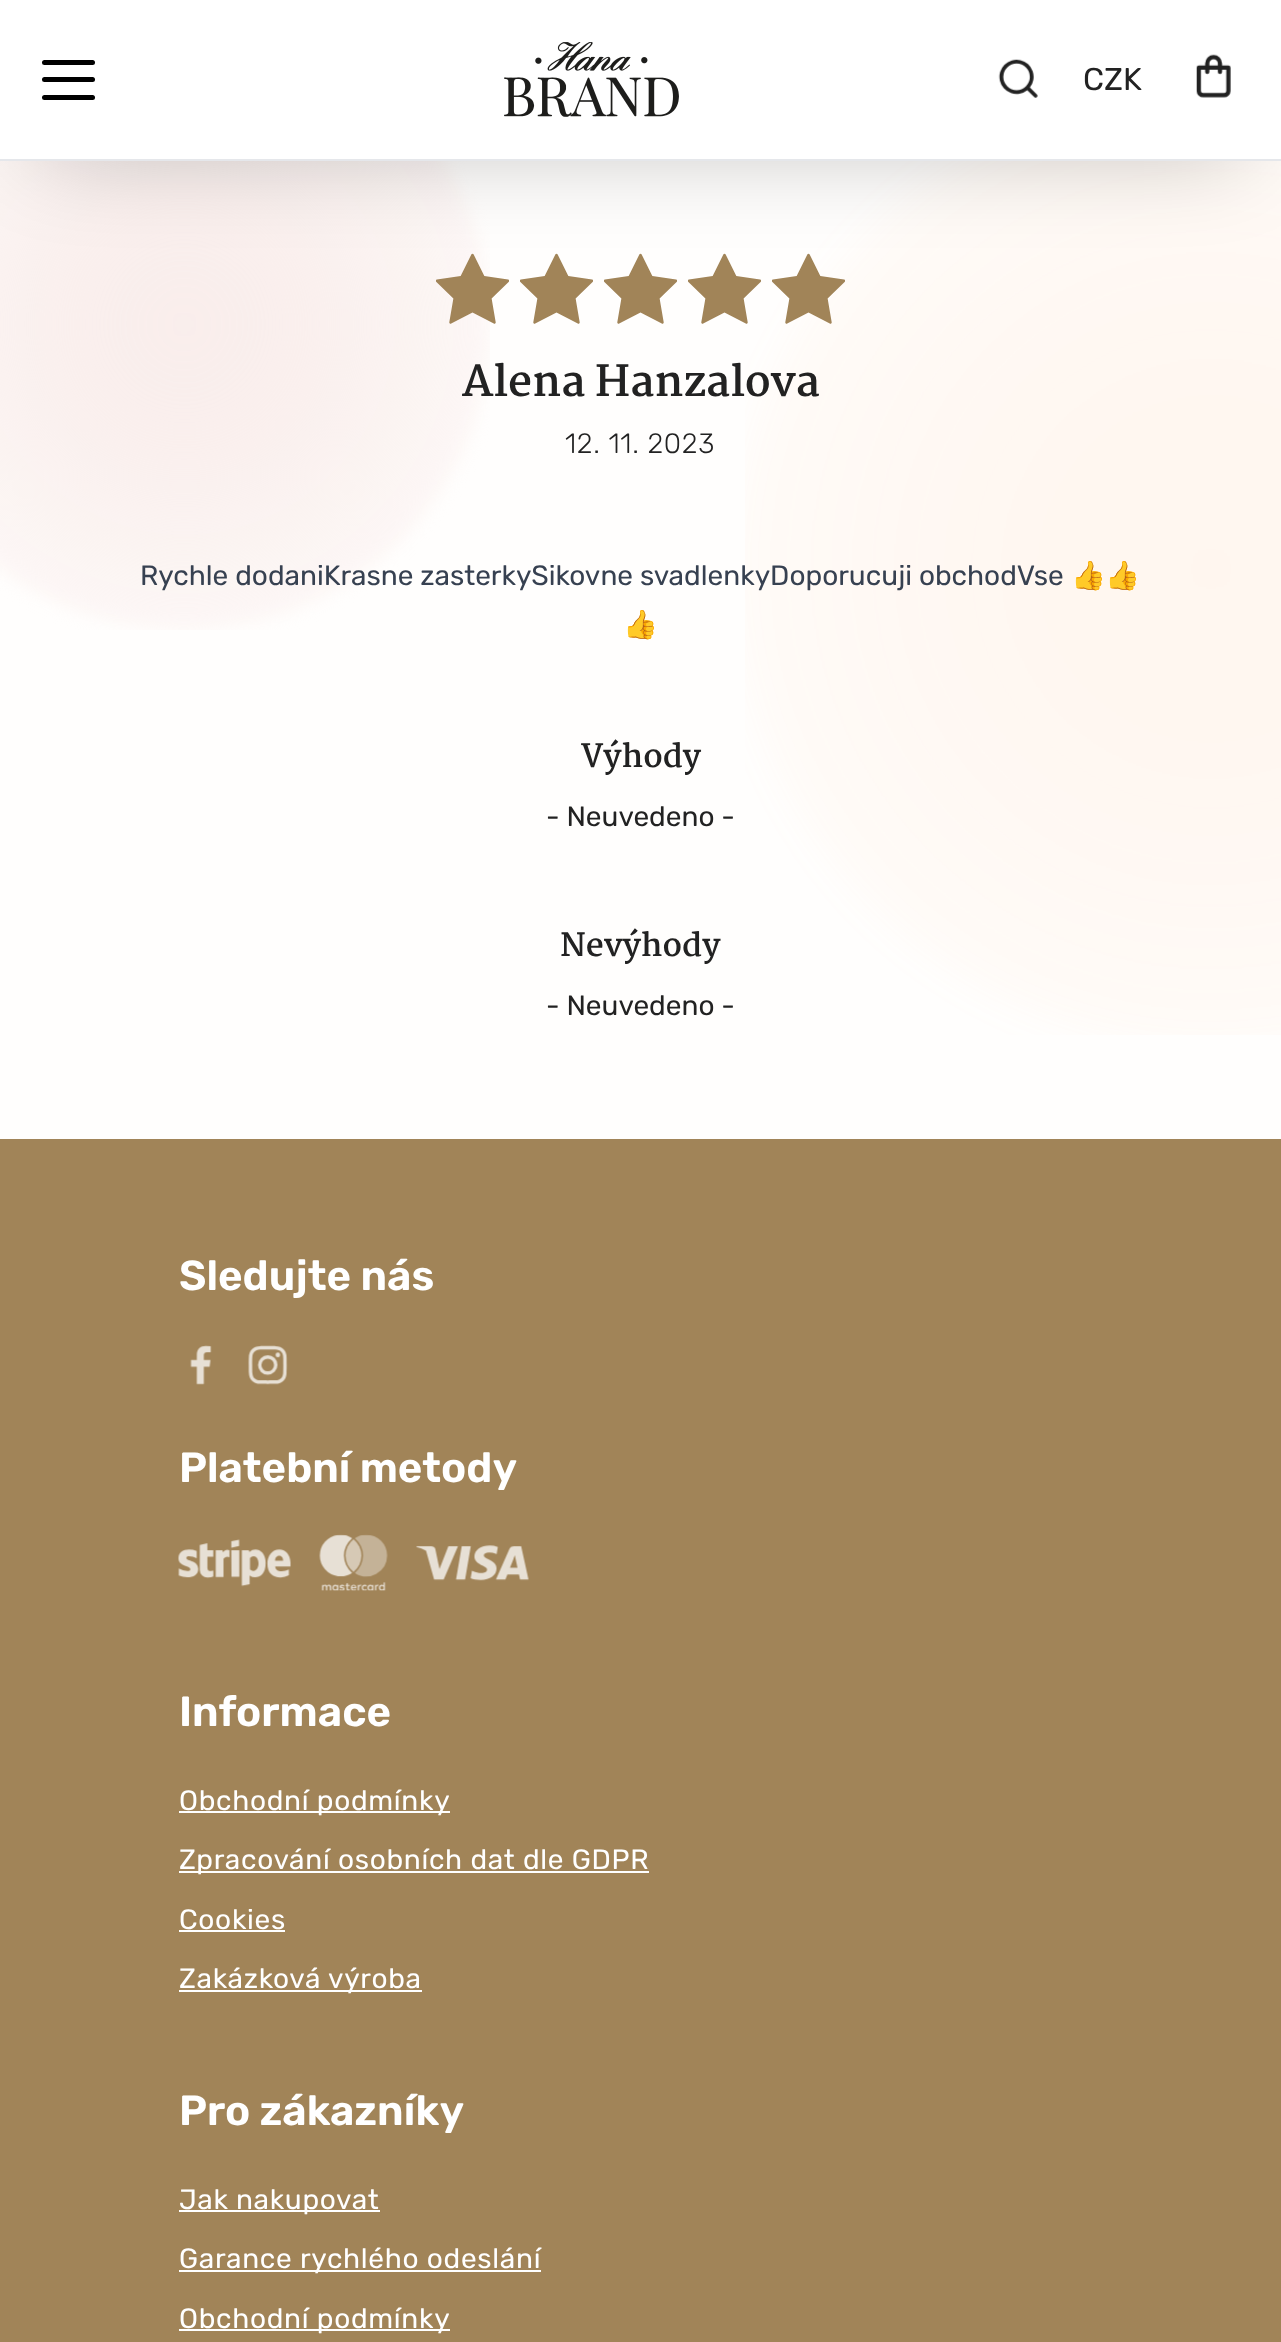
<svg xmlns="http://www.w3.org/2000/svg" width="1281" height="2342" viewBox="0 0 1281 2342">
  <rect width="100%" height="100%" fill="rgb(255,254,253)"/>
  <image x="0" y="161" width="490" height="469" href="pic4.png"/>
  <image x="745" y="161" width="536" height="874" href="pic5.png"/>
  <image x="436" y="253" width="73" height="71" href="pic6.png"/>
  <image x="520" y="253" width="73" height="71" href="pic7.png"/>
  <image x="604" y="253" width="73" height="71" href="pic7.png"/>
  <image x="688" y="253" width="73" height="71" href="pic7.png"/>
  <image x="772" y="253" width="73" height="71" href="pic8.png"/>
  <rect x="39" y="65" width="1204" height="84" fill="rgba(0,0,0,0.25)" filter="blur(46.5px)"/>
  <rect x="0" y="0" width="1281" height="159" fill="rgb(255,255,255)"/>
  <rect x="0" y="159" width="1281" height="2" fill="rgb(229,231,235)"/>
  <rect x="42" y="60" width="53" height="5" rx="2.5" fill="rgb(0,0,0)"/>
  <rect x="42" y="77" width="53" height="5" rx="2.5" fill="rgb(0,0,0)"/>
  <rect x="42" y="95" width="53" height="5" rx="2.5" fill="rgb(0,0,0)"/>
  <image x="504" y="42" width="175" height="75" href="pic1.png"/>
  <image x="998" y="59" width="40" height="39" href="pic2.png"/>
  <text x="1083" y="90" font-family="Rubik" font-size="31.5" fill="rgb(34,34,34)">CZK</text>
  <image x="1196" y="54" width="35" height="44" href="pic3.png"/>
  <text x="462" y="396" font-family="Martel" font-size="42" font-weight="bold" fill="rgb(34,34,34)">Alena Hanzalova</text>
  <text x="565" y="453" font-family="Rubik" font-size="28" font-weight="300" letter-spacing="0.7" fill="rgb(34,34,34)">12. 11. 2023</text>
  <text x="140" y="585" font-family="Rubik" font-size="28" fill="rgb(55,65,81)">Rychle dodaniKrasne zasterkySikovne svadlenkyDoporucuji obchodVse</text>
  <g font-family="Noto Color Emoji" font-size="28" fill="rgb(55,65,81)">
    <text x="1071" y="585">👍👍</text>
    <text x="623" y="634">👍</text>
  </g>
  <text x="581" y="767" font-family="Martel" font-size="31.5" font-weight="bold" fill="rgb(34,34,34)">Výhody</text>
  <text x="546" y="826" font-family="Rubik" font-size="28" fill="rgb(34,34,34)">- Neuvedeno -</text>
  <text x="560" y="956" font-family="Martel" font-size="31.5" font-weight="bold" fill="rgb(34,34,34)">Nevýhody</text>
  <text x="546" y="1015" font-family="Rubik" font-size="28" fill="rgb(34,34,34)">- Neuvedeno -</text>
  <rect x="0" y="1139" width="1281" height="1203" fill="rgb(161,132,88)"/>
  <text x="179" y="1290" font-family="Rubik" font-size="42" font-weight="600" fill="rgb(255,255,255)">Sledujte nás</text>
  <image x="190" y="1345" width="22" height="40" href="pic9.png"/>
  <image x="248" y="1345" width="40" height="40" href="pic10.png"/>
  <text x="179" y="1482" font-family="Rubik" font-size="42" font-weight="600" fill="rgb(255,255,255)">Platební metody</text>
  <image x="178" y="1539" width="113" height="48" href="pic11.png"/>
  <image x="319" y="1534" width="69" height="57" href="pic12.png"/>
  <image x="416" y="1545" width="113" height="36" href="pic13.png"/>
  <text x="179" y="1726" font-family="Rubik" font-size="42" font-weight="600" fill="rgb(255,255,255)">Informace</text>
  <rect x="179" y="1811" width="271" height="2" fill="rgb(255,255,255)"/>
  <text x="179" y="1810" font-family="Rubik" font-size="28" letter-spacing="0.7" fill="rgb(255,255,255)">Obchodní podmínky</text>
  <rect x="179" y="1871" width="470" height="2" fill="rgb(255,255,255)"/>
  <g font-family="Rubik" font-size="28" letter-spacing="0.7" fill="rgb(255,255,255)">
    <text x="179" y="1869">Zpracování osobních dat dle GDPR</text>
    <text x="179" y="1929">Cookies</text>
  </g>
  <rect x="179" y="1930" width="106" height="2" fill="rgb(255,255,255)"/>
  <rect x="179" y="1990" width="243" height="2" fill="rgb(255,255,255)"/>
  <text x="179" y="1988" font-family="Rubik" font-size="28" letter-spacing="0.7" fill="rgb(255,255,255)">Zakázková výroba</text>
  <text x="179" y="2125" font-family="Rubik" font-size="42" font-weight="600" fill="rgb(255,255,255)">Pro zákazníky</text>
  <rect x="179" y="2210" width="201" height="2" fill="rgb(255,255,255)"/>
  <text x="179" y="2209" font-family="Rubik" font-size="28" letter-spacing="0.7" fill="rgb(255,255,255)">Jak nakupovat</text>
  <rect x="179" y="2270" width="362" height="2" fill="rgb(255,255,255)"/>
  <text x="179" y="2268" font-family="Rubik" font-size="28" letter-spacing="0.7" fill="rgb(255,255,255)">Garance rychlého odeslání</text>
  <rect x="179" y="2329" width="271" height="2" fill="rgb(255,255,255)"/>
  <text x="179" y="2328" font-family="Rubik" font-size="28" letter-spacing="0.7" fill="rgb(255,255,255)">Obchodní podmínky</text>
</svg>
